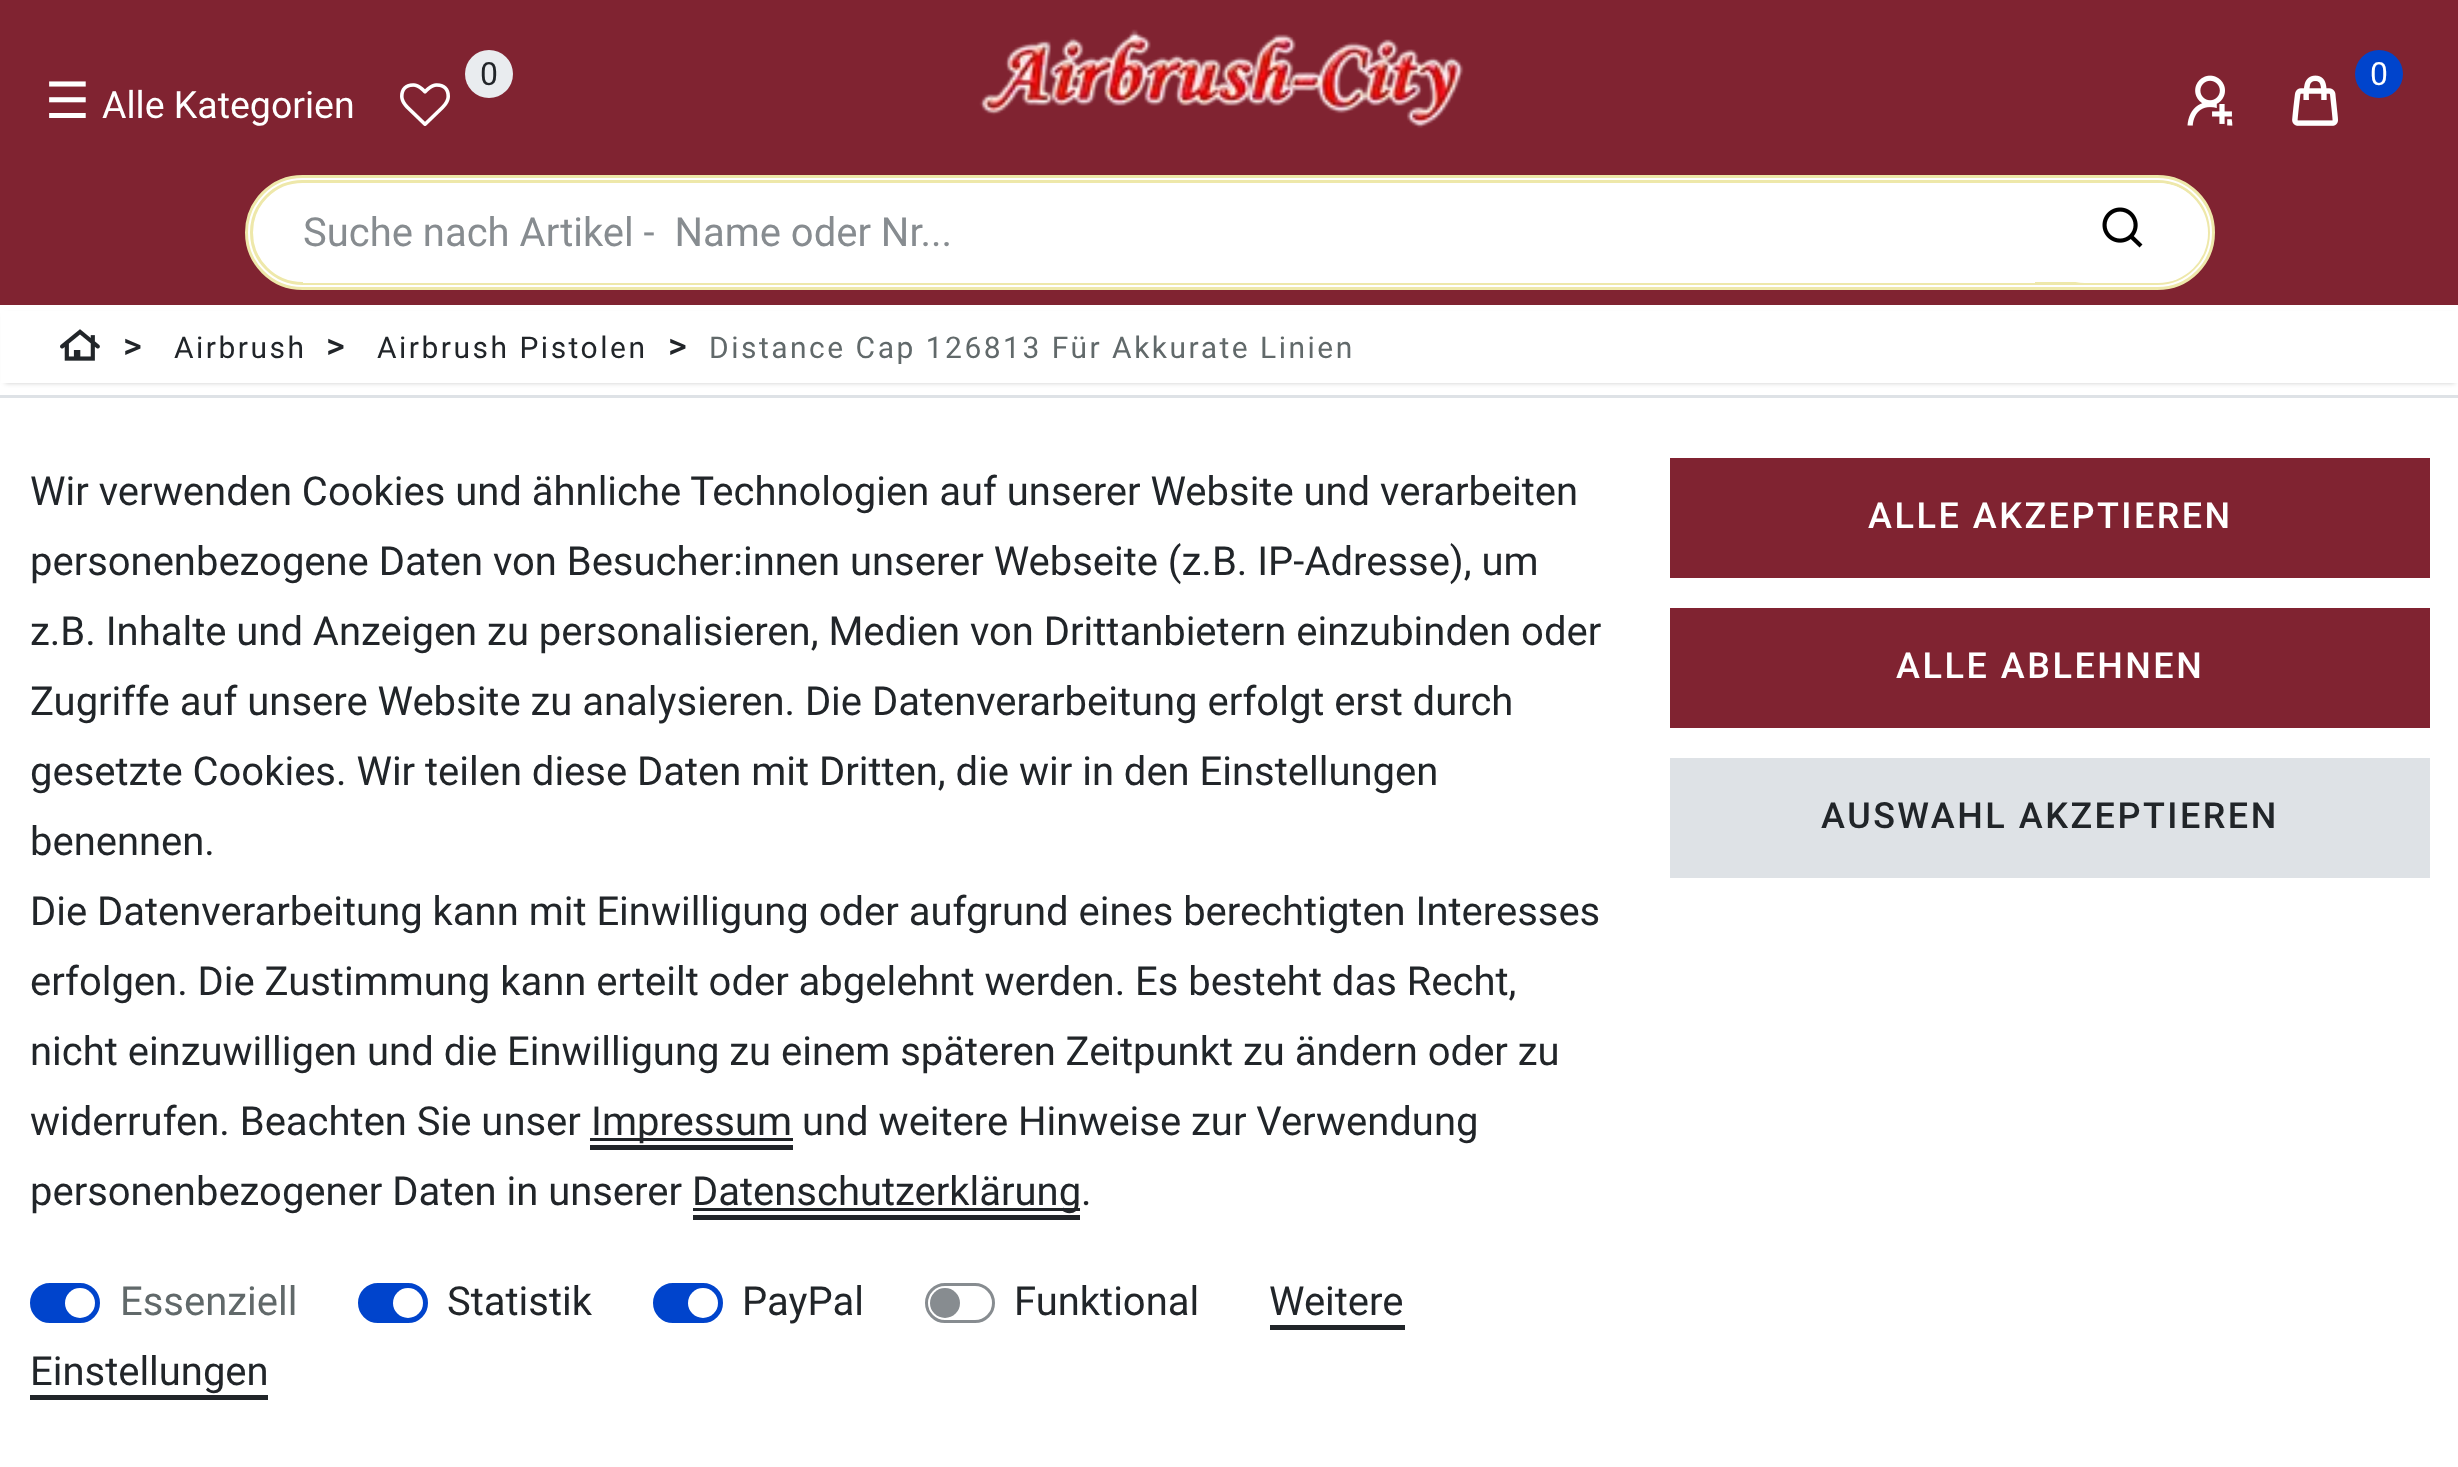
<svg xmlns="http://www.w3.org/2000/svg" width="2458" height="1467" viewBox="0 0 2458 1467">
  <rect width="100%" height="100%" fill="rgb(255,255,255)"/>
  <rect x="0" y="0" width="2458" height="305" fill="rgb(128,35,49)"/>
  <circle cx="489" cy="74" r="24" fill="rgb(233,236,239)"/>
  <text x="480" y="85" font-family="Roboto" font-size="32" fill="rgb(33,37,41)">0</text>
  <image x="400" y="83" width="50" height="43" href="pic1.png"/>
  <text x="45" y="118" font-family="DejaVu Sans" font-size="50" fill="rgb(255,255,255)">☰</text>
  <text x="102" y="118" font-family="Roboto" font-size="37.5" fill="rgb(255,255,255)">Alle Kategorien</text>
  <image x="979" y="29" width="485" height="99" href="pic2.png"/>
  <image x="2187" y="75" width="46" height="51" href="pic3.png"/>
  <image x="2292" y="75" width="46" height="51" href="pic4.png"/>
  <circle cx="2379" cy="74" r="24" fill="rgb(0,68,204)"/>
  <text x="2370" y="85" font-family="Roboto" font-size="32" fill="rgb(255,255,255)">0</text>
  <rect x="246.5" y="176.5" width="1967" height="112" rx="56" fill="rgb(255,255,255)" stroke="rgb(238,232,170)" stroke-width="3"/>
  <rect x="251.5" y="181.5" width="1957" height="102" rx="51" fill="none" stroke="rgb(238,232,170)" stroke-width="3"/>
  <rect x="303" y="282" width="1732" height="1" fill="rgb(255,255,255)"/>
  <text x="303" y="246" font-family="Roboto" font-size="40" fill="rgb(135,140,144)" xml:space="preserve">Suche nach Artikel -  Name oder Nr...</text>
  <rect x="2035" y="183" width="173" height="100" rx="50" fill="rgb(255,255,255)"/>
  <image x="2102" y="207" width="41" height="41" href="pic5.png"/>
  <rect x="5" y="315" width="2450" height="68" fill="rgba(0,0,0,0.2)" filter="blur(2.5px)"/>
  <rect x="1" y="311" width="2457" height="72" fill="rgb(255,255,255)"/>
  <image x="60" y="329" width="40" height="32" href="pic6.png"/>
  <text x="123" y="358" font-family="Roboto" font-size="36" font-weight="500" letter-spacing="2.5" fill="rgb(33,37,41)">&gt;</text>
  <text x="174" y="358" font-family="Roboto" font-size="30" letter-spacing="2.5" fill="rgb(33,37,41)">Airbrush</text>
  <text x="326" y="358" font-family="Roboto" font-size="36" font-weight="500" letter-spacing="2.5" fill="rgb(33,37,41)">&gt;</text>
  <text x="377" y="358" font-family="Roboto" font-size="30" letter-spacing="2.5" fill="rgb(33,37,41)">Airbrush Pistolen</text>
  <text x="668" y="358" font-family="Roboto" font-size="36" font-weight="500" letter-spacing="2.5" fill="rgb(33,37,41)">&gt;</text>
  <text x="709" y="358" font-family="Roboto" font-size="30" letter-spacing="2.5" fill="rgb(97,105,106)">Distance Cap 126813 Für Akkurate Linien</text>
  <rect x="0" y="395" width="2458" height="3" fill="rgb(222,226,230)"/>
  <g font-family="Roboto" font-size="40" fill="rgb(33,37,41)">
    <text>
      <tspan x="30" y="505">Wir verwenden Cookies und ähnliche Technologien auf unserer Website und verarbeiten</tspan>
      <tspan x="30" y="575">personenbezogene Daten von Besucher:innen unserer Webseite (z.B. IP-Adresse), um</tspan>
      <tspan x="30" y="645">z.B. Inhalte und Anzeigen zu personalisieren, Medien von Drittanbietern einzubinden oder</tspan>
      <tspan x="30" y="715">Zugriffe auf unsere Website zu analysieren. Die Datenverarbeitung erfolgt erst durch</tspan>
      <tspan x="30" y="785">gesetzte Cookies. Wir teilen diese Daten mit Dritten, die wir in den Einstellungen</tspan>
      <tspan x="30" y="855">benennen.</tspan>
      <tspan x="30" y="925">Die Datenverarbeitung kann mit Einwilligung oder aufgrund eines berechtigten Interesses</tspan>
      <tspan x="30" y="995">erfolgen. Die Zustimmung kann erteilt oder abgelehnt werden. Es besteht das Recht,</tspan>
      <tspan x="30" y="1065">nicht einzuwilligen und die Einwilligung zu einem späteren Zeitpunkt zu ändern oder zu</tspan>
      <tspan x="30" y="1135">widerrufen. Beachten Sie unser</tspan>
    </text>
  </g>
  <rect x="590" y="1138" width="203" height="3" fill="rgb(33,37,41)"/>
  <text x="591" y="1135" font-family="Roboto" font-size="40" fill="rgb(33,37,41)">Impressum</text>
  <rect x="590" y="1145" width="203" height="5" fill="rgb(33,37,41)"/>
  <g font-family="Roboto" font-size="40" fill="rgb(33,37,41)">
    <text x="802" y="1135">und weitere Hinweise zur Verwendung</text>
    <text x="30" y="1205">personenbezogener Daten in unserer</text>
  </g>
  <rect x="693" y="1208" width="387" height="3" fill="rgb(33,37,41)"/>
  <text x="692" y="1205" font-family="Roboto" font-size="40" fill="rgb(33,37,41)">Datenschutzerklärung</text>
  <rect x="693" y="1215" width="387" height="5" fill="rgb(33,37,41)"/>
  <text x="1081" y="1205" font-family="Roboto" font-size="40" fill="rgb(33,37,41)">.</text>
  <rect x="31.5" y="1284.5" width="67" height="37" rx="18.5" fill="rgb(0,68,204)" stroke="rgb(0,68,204)" stroke-width="3"/>
  <text x="120" y="1315" font-family="Roboto" font-size="40" fill="rgb(97,105,106)">Essenziell</text>
  <circle cx="80" cy="1303" r="15" fill="rgb(255,255,255)"/>
  <rect x="359.5" y="1284.5" width="67" height="37" rx="18.5" fill="rgb(0,68,204)" stroke="rgb(0,68,204)" stroke-width="3"/>
  <text x="447" y="1315" font-family="Roboto" font-size="40" fill="rgb(33,37,41)">Statistik</text>
  <circle cx="408" cy="1303" r="15" fill="rgb(255,255,255)"/>
  <rect x="654.5" y="1284.5" width="67" height="37" rx="18.5" fill="rgb(0,68,204)" stroke="rgb(0,68,204)" stroke-width="3"/>
  <text x="742" y="1315" font-family="Roboto" font-size="40" fill="rgb(33,37,41)">PayPal</text>
  <circle cx="703" cy="1303" r="15" fill="rgb(255,255,255)"/>
  <rect x="926.5" y="1284.5" width="67" height="37" rx="18.5" fill="none" stroke="rgb(135,140,144)" stroke-width="3"/>
  <text x="1014" y="1315" font-family="Roboto" font-size="40" fill="rgb(33,37,41)">Funktional</text>
  <circle cx="945" cy="1303" r="15" fill="rgb(135,140,144)"/>
  <text x="1269" y="1315" font-family="Roboto" font-size="40" fill="rgb(33,37,41)">Weitere</text>
  <rect x="1270" y="1325" width="135" height="5" fill="rgb(33,37,41)"/>
  <text x="30" y="1385" font-family="Roboto" font-size="40" fill="rgb(33,37,41)">Einstellungen</text>
  <rect x="30" y="1395" width="238" height="5" fill="rgb(33,37,41)"/>
  <rect x="1670" y="458" width="760" height="120" fill="rgb(128,35,49)"/>
  <text x="1868" y="528" font-family="Roboto" font-size="36" font-weight="500" letter-spacing="2.5" fill="rgb(255,255,255)">ALLE AKZEPTIEREN</text>
  <rect x="1670" y="608" width="760" height="120" fill="rgb(128,35,49)"/>
  <text x="1896" y="678" font-family="Roboto" font-size="36" font-weight="500" letter-spacing="2.5" fill="rgb(255,255,255)">ALLE ABLEHNEN</text>
  <rect x="1670" y="758" width="760" height="120" fill="rgb(222,226,230)"/>
  <text x="1821" y="828" font-family="Roboto" font-size="36" font-weight="500" letter-spacing="2.5" fill="rgb(33,37,41)">AUSWAHL AKZEPTIEREN</text>
</svg>
